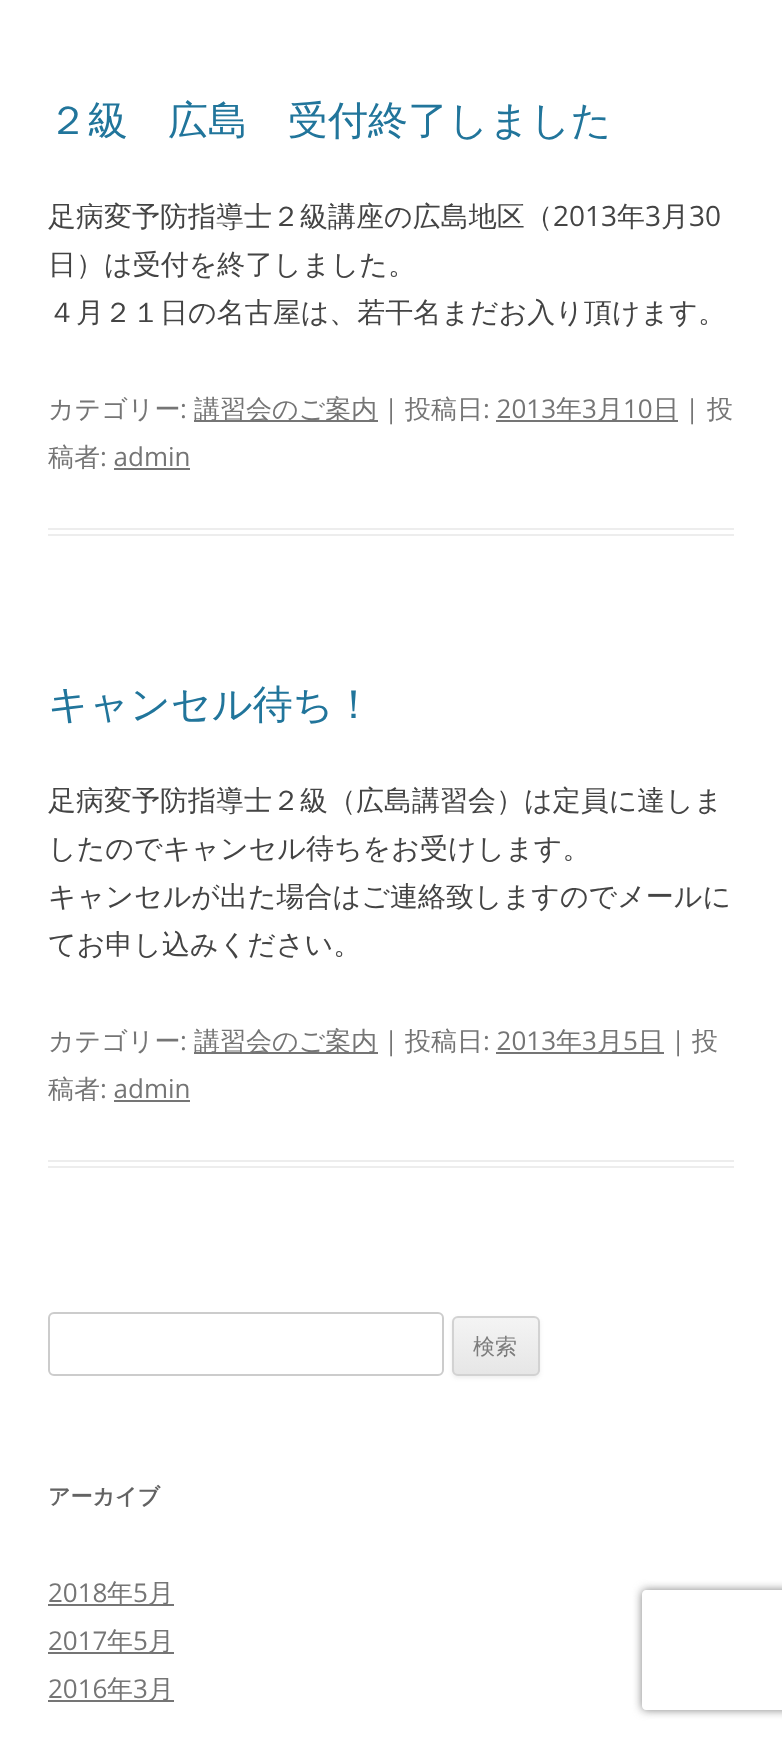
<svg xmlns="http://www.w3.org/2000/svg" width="782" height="1738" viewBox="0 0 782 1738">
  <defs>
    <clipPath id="clip1"><rect x="452" y="1316" width="88" height="60" rx="6"/></clipPath>
    <linearGradient id="g1" gradientUnits="userSpaceOnUse" x1="496" y1="1318" x2="496" y2="1374"><stop offset="0" stop-color="rgb(244,244,244)"/><stop offset="1" stop-color="rgb(230,230,230)"/></linearGradient>
    <clipPath id="clip2"><path d="M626 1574H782V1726H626ZM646 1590H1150C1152 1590 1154 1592 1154 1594V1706C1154 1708 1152 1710 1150 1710H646C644 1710 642 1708 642 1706V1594C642 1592 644 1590 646 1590Z" clip-rule="evenodd"/></clipPath>
  </defs>
  <rect width="100%" height="100%" fill="rgb(255,255,255)"/>
  <rect x="48" y="528" width="686" height="2" fill="rgb(237,237,237)"/>
  <rect x="48" y="534" width="686" height="2" fill="rgb(237,237,237)"/>
  <text x="48" y="134" font-family="WenQuanYi Zen Hei" font-size="40" font-weight="500" fill="rgb(33,117,155)">２級　広島　受付終了しました</text>
  <text x="48" y="226" font-family="WenQuanYi Zen Hei" font-size="28" font-weight="500" fill="rgb(68,68,68)">足病変予防指導士２級講座の広島地区（</text>
  <text x="553" y="226" font-family="Open Sans" font-size="28" fill="rgb(68,68,68)">2013</text>
  <text x="617" y="226" font-family="WenQuanYi Zen Hei" font-size="28" font-weight="500" fill="rgb(68,68,68)">年</text>
  <text x="645" y="226" font-family="Open Sans" font-size="28" fill="rgb(68,68,68)">3</text>
  <text x="661" y="226" font-family="WenQuanYi Zen Hei" font-size="28" font-weight="500" fill="rgb(68,68,68)">月</text>
  <text x="689" y="226" font-family="Open Sans" font-size="28" fill="rgb(68,68,68)">30</text>
  <g font-family="WenQuanYi Zen Hei" font-size="28" font-weight="500" fill="rgb(68,68,68)">
    <text>
      <tspan x="48" y="274">日）は受付を終了しました。</tspan>
      <tspan x="48" y="322">４月２１日の名古屋は、若干名まだお入り頂けます。</tspan>
    </text>
  </g>
  <text x="48" y="418" font-family="WenQuanYi Zen Hei" font-size="26" font-weight="500" fill="rgb(117,117,117)">カテゴリー</text>
  <text x="180" y="418" font-family="Open Sans" font-size="26" fill="rgb(117,117,117)">:</text>
  <rect x="194" y="420" width="184" height="2" fill="rgb(117,117,117)"/>
  <text x="194" y="418" font-family="WenQuanYi Zen Hei" font-size="26" font-weight="500" fill="rgb(117,117,117)">講習会のご案内</text>
  <text x="384" y="418" font-family="Open Sans" font-size="26" fill="rgb(117,117,117)">|</text>
  <text x="405" y="418" font-family="WenQuanYi Zen Hei" font-size="26" font-weight="500" fill="rgb(117,117,117)">投稿日</text>
  <text x="483" y="418" font-family="Open Sans" font-size="26" fill="rgb(117,117,117)">: 2013</text>
  <rect x="496" y="420" width="182" height="2" fill="rgb(117,117,117)"/>
  <text x="556" y="418" font-family="WenQuanYi Zen Hei" font-size="26" font-weight="500" fill="rgb(117,117,117)">年</text>
  <text x="582" y="418" font-family="Open Sans" font-size="26" fill="rgb(117,117,117)">3</text>
  <text x="597" y="418" font-family="WenQuanYi Zen Hei" font-size="26" font-weight="500" fill="rgb(117,117,117)">月</text>
  <text x="623" y="418" font-family="Open Sans" font-size="26" fill="rgb(117,117,117)">10</text>
  <text x="653" y="418" font-family="WenQuanYi Zen Hei" font-size="26" font-weight="500" fill="rgb(117,117,117)">日</text>
  <text x="685" y="418" font-family="Open Sans" font-size="26" fill="rgb(117,117,117)">|</text>
  <g font-family="WenQuanYi Zen Hei" font-size="26" font-weight="500" fill="rgb(117,117,117)">
    <text x="707" y="418">投</text>
    <text x="48" y="466">稿者</text>
  </g>
  <text x="100" y="466" font-family="Open Sans" font-size="26" fill="rgb(117,117,117)">: admin</text>
  <rect x="114" y="468" width="76" height="2" fill="rgb(117,117,117)"/>
  <rect x="48" y="1160" width="686" height="2" fill="rgb(237,237,237)"/>
  <rect x="48" y="1166" width="686" height="2" fill="rgb(237,237,237)"/>
  <text x="48" y="718" font-family="WenQuanYi Zen Hei" font-size="40" font-weight="500" fill="rgb(33,117,155)">キャンセル待ち！</text>
  <g font-family="WenQuanYi Zen Hei" font-size="28" font-weight="500" fill="rgb(68,68,68)">
    <text>
      <tspan x="48" y="810">足病変予防指導士２級（広島講習会）は定員に達しま</tspan>
      <tspan x="48" y="858">したのでキャンセル待ちをお受けします。</tspan>
      <tspan x="48" y="906">キャンセルが出た場合はご連絡致しますのでメールに</tspan>
      <tspan x="48" y="954">てお申し込みください。</tspan>
    </text>
  </g>
  <text x="48" y="1050" font-family="WenQuanYi Zen Hei" font-size="26" font-weight="500" fill="rgb(117,117,117)">カテゴリー</text>
  <text x="180" y="1050" font-family="Open Sans" font-size="26" fill="rgb(117,117,117)">:</text>
  <rect x="194" y="1052" width="184" height="2" fill="rgb(117,117,117)"/>
  <text x="194" y="1050" font-family="WenQuanYi Zen Hei" font-size="26" font-weight="500" fill="rgb(117,117,117)">講習会のご案内</text>
  <text x="384" y="1050" font-family="Open Sans" font-size="26" fill="rgb(117,117,117)">|</text>
  <text x="405" y="1050" font-family="WenQuanYi Zen Hei" font-size="26" font-weight="500" fill="rgb(117,117,117)">投稿日</text>
  <text x="483" y="1050" font-family="Open Sans" font-size="26" fill="rgb(117,117,117)">: 2013</text>
  <rect x="496" y="1052" width="168" height="2" fill="rgb(117,117,117)"/>
  <text x="556" y="1050" font-family="WenQuanYi Zen Hei" font-size="26" font-weight="500" fill="rgb(117,117,117)">年</text>
  <text x="582" y="1050" font-family="Open Sans" font-size="26" fill="rgb(117,117,117)">3</text>
  <text x="597" y="1050" font-family="WenQuanYi Zen Hei" font-size="26" font-weight="500" fill="rgb(117,117,117)">月</text>
  <text x="623" y="1050" font-family="Open Sans" font-size="26" fill="rgb(117,117,117)">5</text>
  <text x="638" y="1050" font-family="WenQuanYi Zen Hei" font-size="26" font-weight="500" fill="rgb(117,117,117)">日</text>
  <text x="671" y="1050" font-family="Open Sans" font-size="26" fill="rgb(117,117,117)">|</text>
  <g font-family="WenQuanYi Zen Hei" font-size="26" font-weight="500" fill="rgb(117,117,117)">
    <text x="692" y="1050">投</text>
    <text x="48" y="1098">稿者</text>
  </g>
  <text x="100" y="1098" font-family="Open Sans" font-size="26" fill="rgb(117,117,117)">: admin</text>
  <rect x="114" y="1100" width="76" height="2" fill="rgb(117,117,117)"/>
  <rect x="49" y="1313" width="394" height="62" rx="5" fill="none" stroke="rgb(204,204,204)" stroke-width="2"/>
  <rect x="452" y="1318" width="88" height="60" rx="6" fill="rgba(64,64,64,0.1)" filter="blur(2px)"/>
  <g clip-path="url(#clip1)">
    <rect x="452" y="1318" width="88" height="56" fill="url(#g1)"/>
  </g>
  <rect x="453" y="1317" width="86" height="58" rx="5" fill="none" stroke="rgb(210,210,210)" stroke-width="2"/>
  <text x="473" y="1354" font-family="WenQuanYi Zen Hei" font-size="22" font-weight="500" fill="rgb(124,124,124)">検索</text>
  <text x="48" y="1504" font-family="WenQuanYi Zen Hei" font-size="22" font-weight="bold" fill="rgb(99,99,99)">アーカイブ</text>
  <text x="48" y="1602" font-family="Open Sans" font-size="26" fill="rgb(117,117,117)">2018</text>
  <rect x="48" y="1604" width="126" height="2" fill="rgb(117,117,117)"/>
  <text x="107" y="1602" font-family="WenQuanYi Zen Hei" font-size="26" font-weight="500" fill="rgb(117,117,117)">年</text>
  <text x="133" y="1602" font-family="Open Sans" font-size="26" fill="rgb(117,117,117)">5</text>
  <text x="148" y="1602" font-family="WenQuanYi Zen Hei" font-size="26" font-weight="500" fill="rgb(117,117,117)">月</text>
  <text x="48" y="1650" font-family="Open Sans" font-size="26" fill="rgb(117,117,117)">2017</text>
  <rect x="48" y="1652" width="126" height="2" fill="rgb(117,117,117)"/>
  <text x="107" y="1650" font-family="WenQuanYi Zen Hei" font-size="26" font-weight="500" fill="rgb(117,117,117)">年</text>
  <text x="133" y="1650" font-family="Open Sans" font-size="26" fill="rgb(117,117,117)">5</text>
  <text x="148" y="1650" font-family="WenQuanYi Zen Hei" font-size="26" font-weight="500" fill="rgb(117,117,117)">月</text>
  <text x="48" y="1698" font-family="Open Sans" font-size="26" fill="rgb(117,117,117)">2016</text>
  <rect x="48" y="1700" width="126" height="2" fill="rgb(117,117,117)"/>
  <text x="107" y="1698" font-family="WenQuanYi Zen Hei" font-size="26" font-weight="500" fill="rgb(117,117,117)">年</text>
  <text x="133" y="1698" font-family="Open Sans" font-size="26" fill="rgb(117,117,117)">3</text>
  <text x="148" y="1698" font-family="WenQuanYi Zen Hei" font-size="26" font-weight="500" fill="rgb(117,117,117)">月</text>
  <g clip-path="url(#clip2)">
    <rect x="642" y="1590" width="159" height="120" rx="4" fill="rgb(128,128,128)" filter="blur(5px)"/>
  </g>
</svg>
